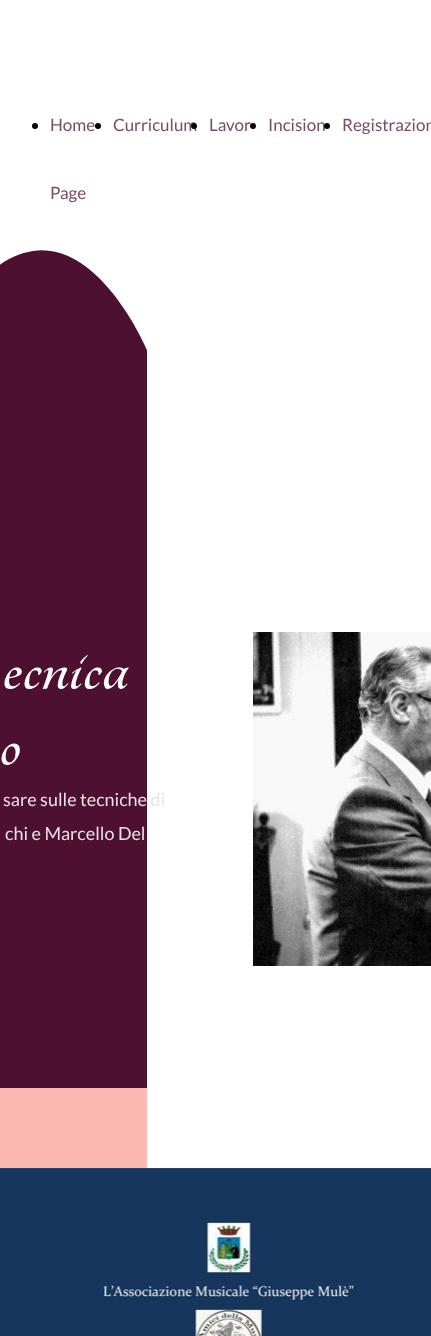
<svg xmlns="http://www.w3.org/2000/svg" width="431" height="1336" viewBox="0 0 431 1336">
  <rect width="100%" height="100%" fill="rgb(255,255,255)"/>
  <circle cx="35" cy="126" r="3" fill="rgb(0,0,0)"/>
  <g font-family="Lato" font-size="17" fill="rgb(122,76,101)">
    <text x="50" y="131">Home</text>
    <text x="50" y="199">Page</text>
  </g>
  <circle cx="98" cy="126" r="3" fill="rgb(0,0,0)"/>
  <text x="113" y="131" font-family="Lato" font-size="17" fill="rgb(122,76,101)">Curriculum</text>
  <circle cx="194" cy="126" r="3" fill="rgb(0,0,0)"/>
  <text x="209" y="131" font-family="Lato" font-size="17" fill="rgb(122,76,101)">Lavor</text>
  <circle cx="253" cy="126" r="3" fill="rgb(0,0,0)"/>
  <text x="268" y="131" font-family="Lato" font-size="17" fill="rgb(122,76,101)">Incision</text>
  <circle cx="327" cy="126" r="3" fill="rgb(0,0,0)"/>
  <text x="342" y="131" font-family="Lato" font-size="17" fill="rgb(122,76,101)">Registrazion</text>
  <path d="M-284 350H147C147 350 101 241 33 251C-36 262-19 345-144 304C-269 263-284 350-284 350Z" fill="rgb(77,16,49)"/>
  <rect x="0" y="350" width="147" height="738" fill="rgb(77,16,49)"/>
  <image x="253" y="632" width="178" height="334" href="pic1.png"/>
  <g font-family="Tangerine" font-size="84" font-weight="bold" fill="rgb(255,255,255)">
    <text x="2" y="689">ecnica</text>
    <text x="-1" y="765">o</text>
  </g>
  <g font-family="Lato" font-size="18" fill="rgb(233,225,229)">
    <text x="3" y="806">sare sulle tecniche di</text>
    <text x="5" y="840">chi e Marcello Del</text>
  </g>
  <rect x="0" y="1088" width="147" height="80" fill="rgb(252,185,178)"/>
  <image x="0" y="1168" width="431" height="168" href="pic2.png"/>
</svg>
